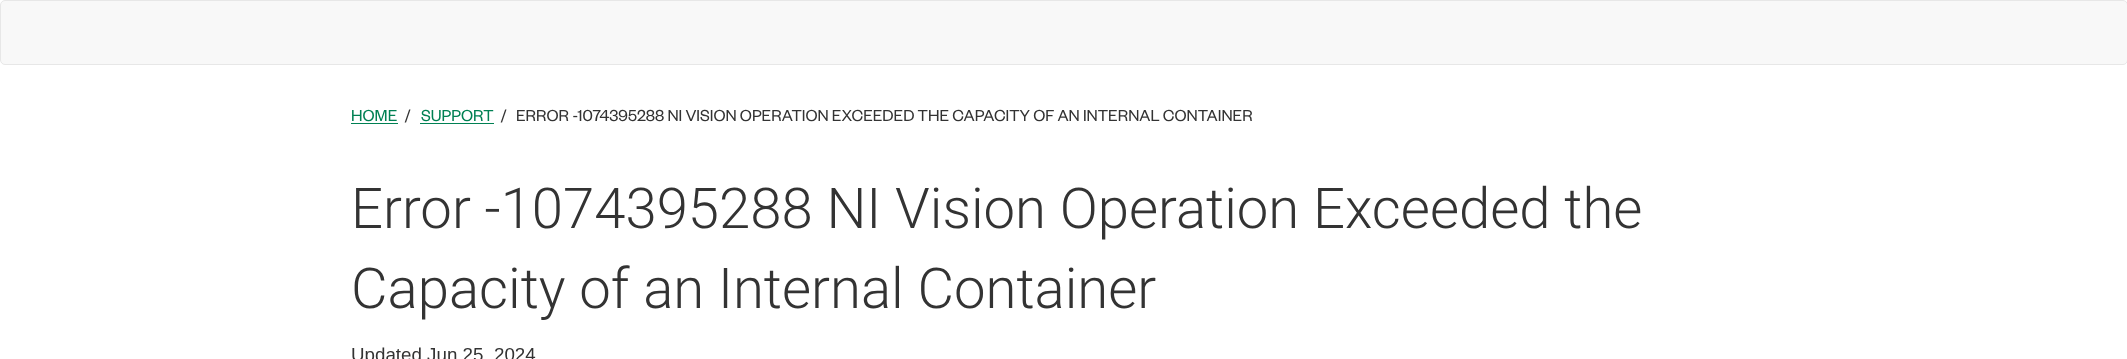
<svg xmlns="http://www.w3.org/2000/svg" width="2127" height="359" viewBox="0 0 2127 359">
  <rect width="100%" height="100%" fill="rgb(255,255,255)"/>
  <rect x="0.5" y="0.5" width="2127" height="64" rx="4.5" fill="rgb(248,248,248)" stroke="rgb(231,231,231)"/>
  <text x="351" y="121" font-family="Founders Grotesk" font-size="17.5" fill="rgb(0,128,83)">HOME</text>
  <rect x="351" y="123" width="47" height="1" fill="rgb(0,128,83)"/>
  <text x="405" y="121" font-family="Founders Grotesk" font-size="17.5" fill="rgb(51,51,51)">/</text>
  <text x="421" y="121" font-family="Founders Grotesk" font-size="17.5" fill="rgb(0,128,83)">SUPPORT</text>
  <rect x="420" y="123" width="74" height="1" fill="rgb(0,128,83)"/>
  <g font-family="Founders Grotesk" font-size="17.5" fill="rgb(51,51,51)">
    <text x="501" y="121">/</text>
    <text x="516" y="121">ERROR -1074395288 NI VISION OPERATION EXCEEDED THE CAPACITY OF AN INTERNAL CONTAINER</text>
  </g>
  <g font-family="Roboto" font-size="56.25" font-weight="300" fill="rgb(51,51,51)">
    <text>
      <tspan x="351" y="228">Error -1074395288 NI Vision Operation Exceeded the</tspan>
      <tspan x="351" y="308">Capacity of an Internal Container</tspan>
    </text>
  </g>
  <g font-family="Liberation Sans" font-size="18.75" fill="rgb(51,51,51)">
    <text x="351" y="361">Updated Jun 25</text>
    <text x="494" y="361">2024</text>
  </g>
</svg>
